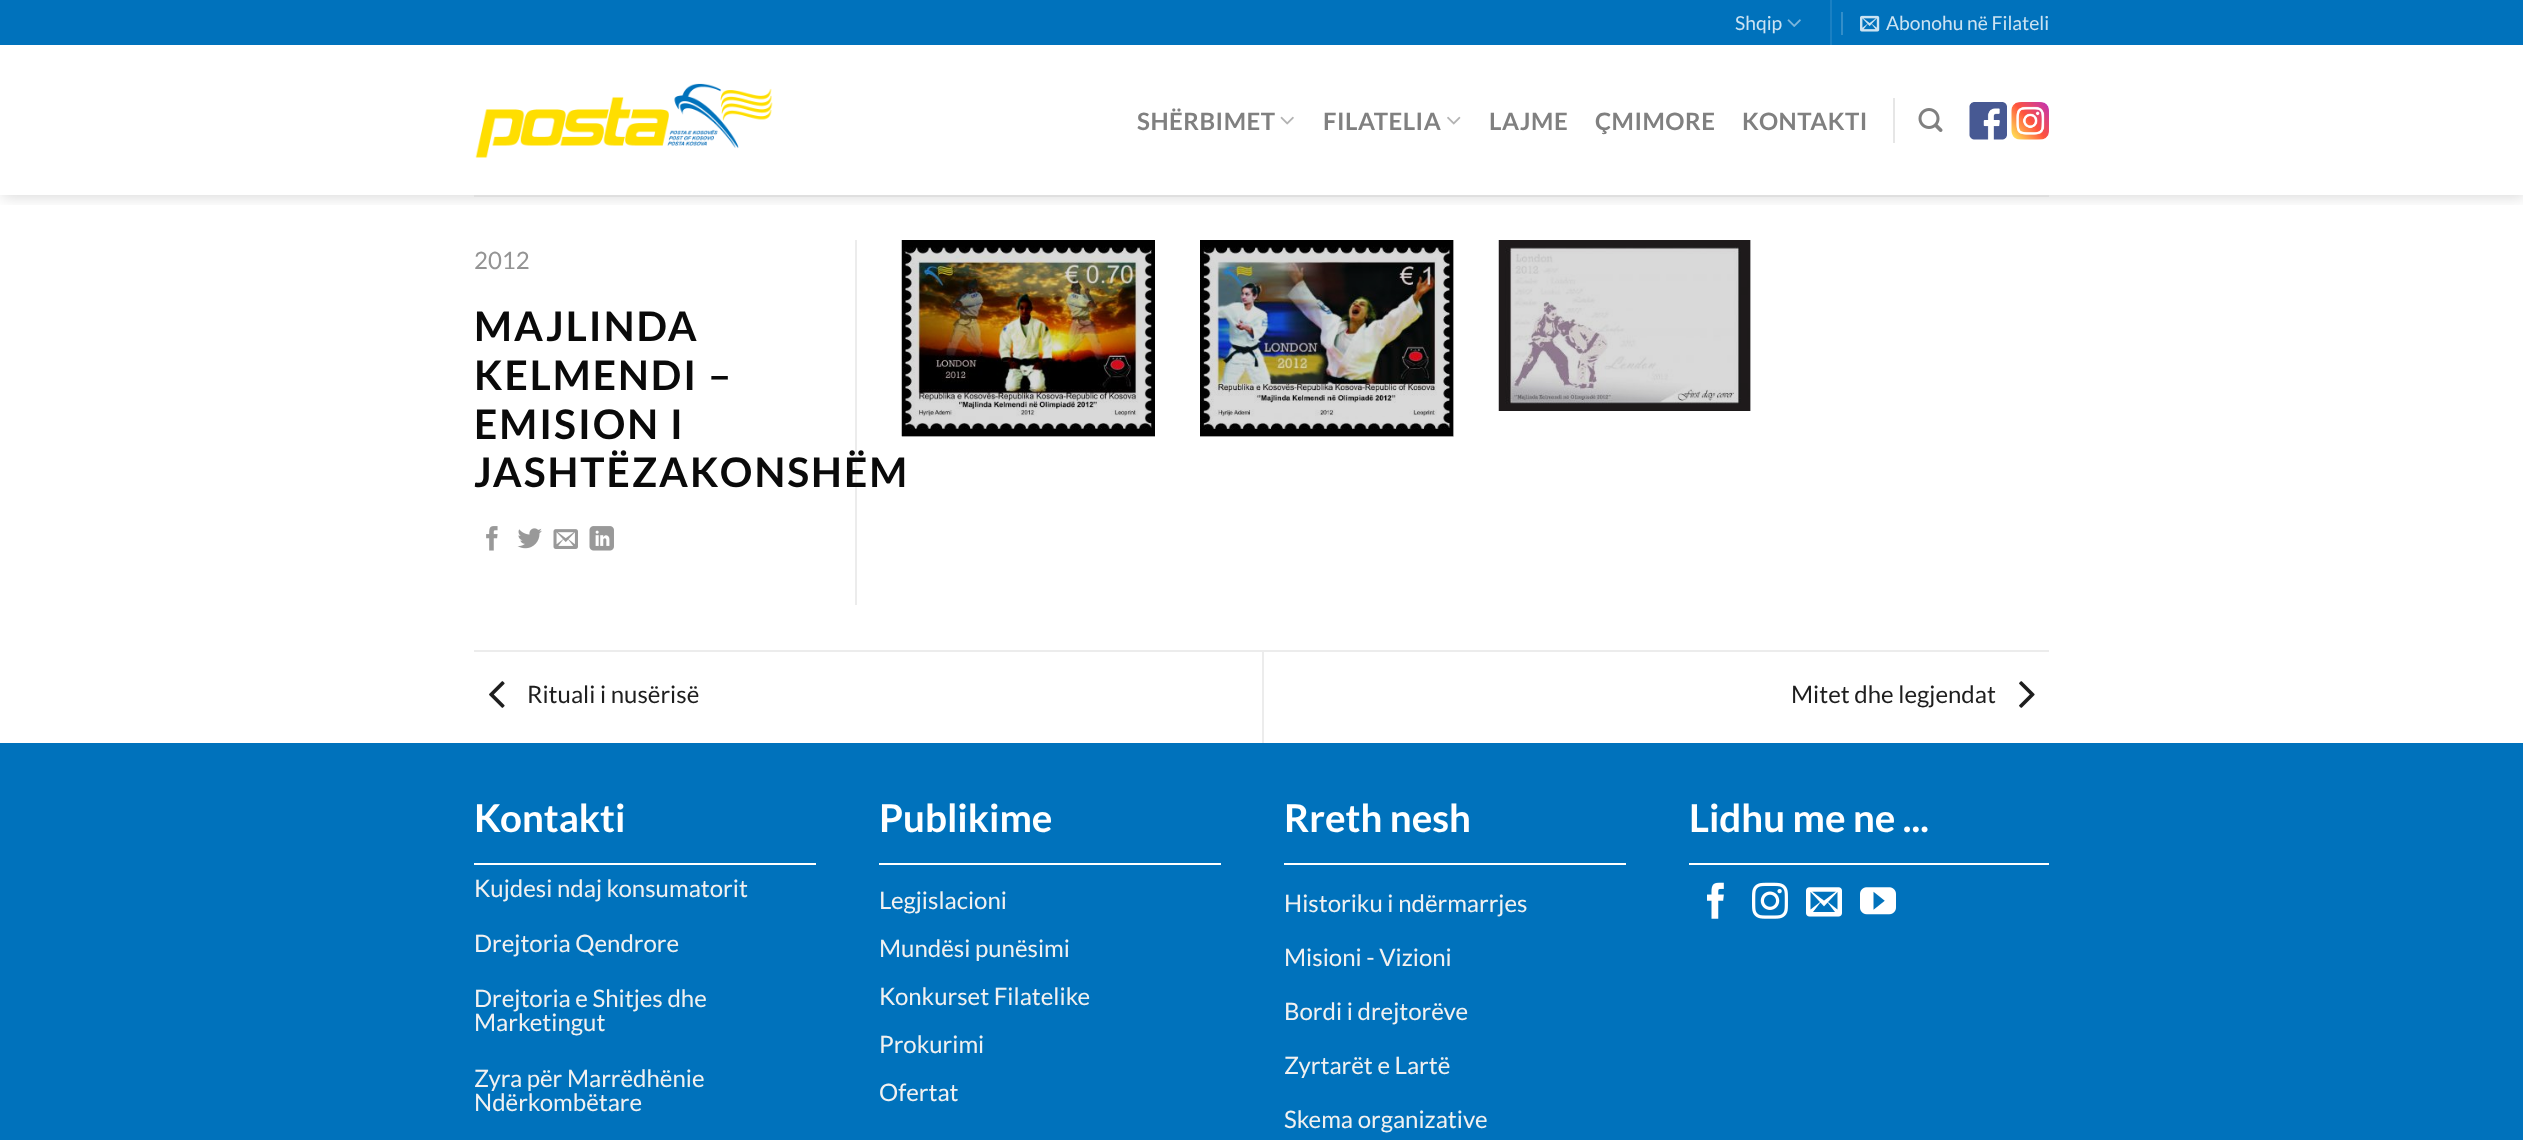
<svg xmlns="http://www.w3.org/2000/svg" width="2523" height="1140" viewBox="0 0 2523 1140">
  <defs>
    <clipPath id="clip1"><rect x="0" y="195" width="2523" height="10"/></clipPath>
  </defs>
  <rect width="100%" height="100%" fill="rgb(255,255,255)"/>
  <rect x="1750" y="240" width="1" height="171" fill="rgb(217,217,217)"/>
  <rect x="1200" y="240" width="254" height="197" fill="rgb(217,217,217)"/>
  <rect x="902" y="436" width="253" height="1" fill="rgb(217,217,217)"/>
  <g clip-path="url(#clip1)">
    <rect x="2" y="2" width="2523" height="195" fill="rgba(0,0,0,0.15)" filter="blur(7.5px)"/>
  </g>
  <rect x="0" y="0" width="2523" height="45" fill="rgb(0,114,188)"/>
  <text x="1735" y="30" font-family="Lato" font-size="19.25" fill="rgb(204,227,242)">Shqip</text>
  <image x="1787" y="19" width="14" height="8" href="pic1.png"/>
  <rect x="1830" y="0" width="2" height="45" fill="rgb(26,128,195)"/>
  <rect x="1841" y="12" width="2" height="23" fill="rgb(51,142,201)"/>
  <image x="1860" y="15" width="20" height="17" href="pic2.png"/>
  <text x="1886" y="30" font-family="Lato" font-size="19.25" fill="rgb(204,227,242)">Abonohu në Filateli</text>
  <image x="475" y="83" width="298" height="75" href="pic3.png"/>
  <text x="1137" y="130" font-family="Lato" font-size="24" font-weight="bold" letter-spacing="0.5" fill="rgb(128,128,128)">SHËRBIMET</text>
  <image x="1280" y="116" width="14" height="9" href="pic4.png"/>
  <text x="1323" y="130" font-family="Lato" font-size="24" font-weight="bold" letter-spacing="0.5" fill="rgb(128,128,128)">FILATELIA</text>
  <image x="1447" y="116" width="14" height="9" href="pic5.png"/>
  <g font-family="Lato" font-size="24" font-weight="bold" letter-spacing="0.5" fill="rgb(128,128,128)">
    <text x="1489" y="130">LAJME</text>
    <text x="1595" y="130">ÇMIMORE</text>
    <text x="1742" y="130">KONTAKTI</text>
  </g>
  <rect x="1893" y="98" width="2" height="45" fill="rgb(230,230,230)"/>
  <image x="1918" y="108" width="25" height="24" href="pic6.png"/>
  <image x="1969" y="102" width="38" height="38" href="pic7.png"/>
  <image x="2011" y="102" width="38" height="38" href="pic8.png"/>
  <rect x="474" y="195" width="1575" height="2" fill="rgb(223,223,223)"/>
  <rect x="855" y="240" width="2" height="365" fill="rgb(236,236,236)"/>
  <text x="474" y="269" font-family="Lato" font-size="24" fill="rgb(148,148,148)">2012</text>
  <g font-family="Lato" font-size="40.75" font-weight="bold" letter-spacing="2" fill="rgb(10,10,10)">
    <text>
      <tspan x="474" y="341">MAJLINDA</tspan>
      <tspan x="474" y="390">KELMENDI –</tspan>
      <tspan x="474" y="439">EMISION I</tspan>
      <tspan x="474" y="487">JASHTËZAKONSHËM</tspan>
    </text>
  </g>
  <image x="486" y="526" width="12" height="25" href="pic9.png"/>
  <image x="517" y="528" width="25" height="21" href="pic10.png"/>
  <image x="553" y="529" width="25" height="20" href="pic11.png"/>
  <image x="589" y="526" width="25" height="25" href="pic12.png"/>
  <image x="901" y="240" width="254" height="197" href="pic13.png"/>
  <image x="1200" y="240" width="254" height="197" href="pic14.png"/>
  <image x="1498" y="240" width="253" height="171" href="pic15.png"/>
  <rect x="474" y="650" width="1575" height="2" fill="rgb(236,236,236)"/>
  <image x="489" y="681" width="16" height="27" href="pic16.png"/>
  <text x="527" y="703" font-family="Lato" font-size="24" fill="rgb(30,30,30)">Rituali i nusërisë</text>
  <rect x="1262" y="651" width="2" height="92" fill="rgb(236,236,236)"/>
  <text x="1791" y="703" font-family="Lato" font-size="24" fill="rgb(30,30,30)">Mitet dhe legjendat</text>
  <image x="2019" y="681" width="16" height="27" href="pic17.png"/>
  <rect x="0" y="743" width="2523" height="397" fill="rgb(0,114,188)"/>
  <text x="474" y="832" font-family="Lato" font-size="38.5" font-weight="bold" fill="rgb(255,255,255)">Kontakti</text>
  <rect x="474" y="863" width="342" height="2" fill="rgb(255,255,255)"/>
  <g font-family="Lato" font-size="24" fill="rgb(241,241,241)">
    <text x="474" y="897">Kujdesi ndaj konsumatorit</text>
    <text x="474" y="952">Drejtoria Qendrore</text>
    <text>
      <tspan x="474" y="1007">Drejtoria e Shitjes dhe</tspan>
      <tspan x="474" y="1031">Marketingut</tspan>
    </text>
    <text>
      <tspan x="474" y="1087">Zyra për Marrëdhënie</tspan>
      <tspan x="474" y="1111">Ndërkombëtare</tspan>
    </text>
  </g>
  <text x="879" y="832" font-family="Lato" font-size="38.5" font-weight="bold" fill="rgb(255,255,255)">Publikime</text>
  <rect x="879" y="863" width="342" height="2" fill="rgb(255,255,255)"/>
  <g font-family="Lato" font-size="24" fill="rgb(241,241,241)">
    <text x="879" y="909">Legjislacioni</text>
    <text x="879" y="957">Mundësi punësimi</text>
    <text x="879" y="1005">Konkurset Filatelike</text>
    <text x="879" y="1053">Prokurimi</text>
    <text x="879" y="1101">Ofertat</text>
  </g>
  <text x="1284" y="832" font-family="Lato" font-size="38.5" font-weight="bold" fill="rgb(255,255,255)">Rreth nesh</text>
  <rect x="1284" y="863" width="342" height="2" fill="rgb(255,255,255)"/>
  <g font-family="Lato" font-size="24" fill="rgb(241,241,241)">
    <text x="1284" y="912">Historiku i ndërmarrjes</text>
    <text x="1284" y="966">Misioni - Vizioni</text>
    <text x="1284" y="1020">Bordi i drejtorëve</text>
    <text x="1284" y="1074">Zyrtarët e Lartë</text>
    <text x="1284" y="1128">Skema organizative</text>
  </g>
  <text x="1689" y="832" font-family="Lato" font-size="38.5" font-weight="bold" fill="rgb(255,255,255)">Lidhu me ne ...</text>
  <rect x="1689" y="863" width="360" height="2" fill="rgb(255,255,255)"/>
  <image x="1707" y="882" width="17" height="37" href="pic18.png"/>
  <image x="1752" y="882" width="36" height="37" href="pic19.png"/>
  <image x="1806" y="887" width="36" height="30" href="pic20.png"/>
  <image x="1860" y="887" width="36" height="28" href="pic21.png"/>
</svg>
